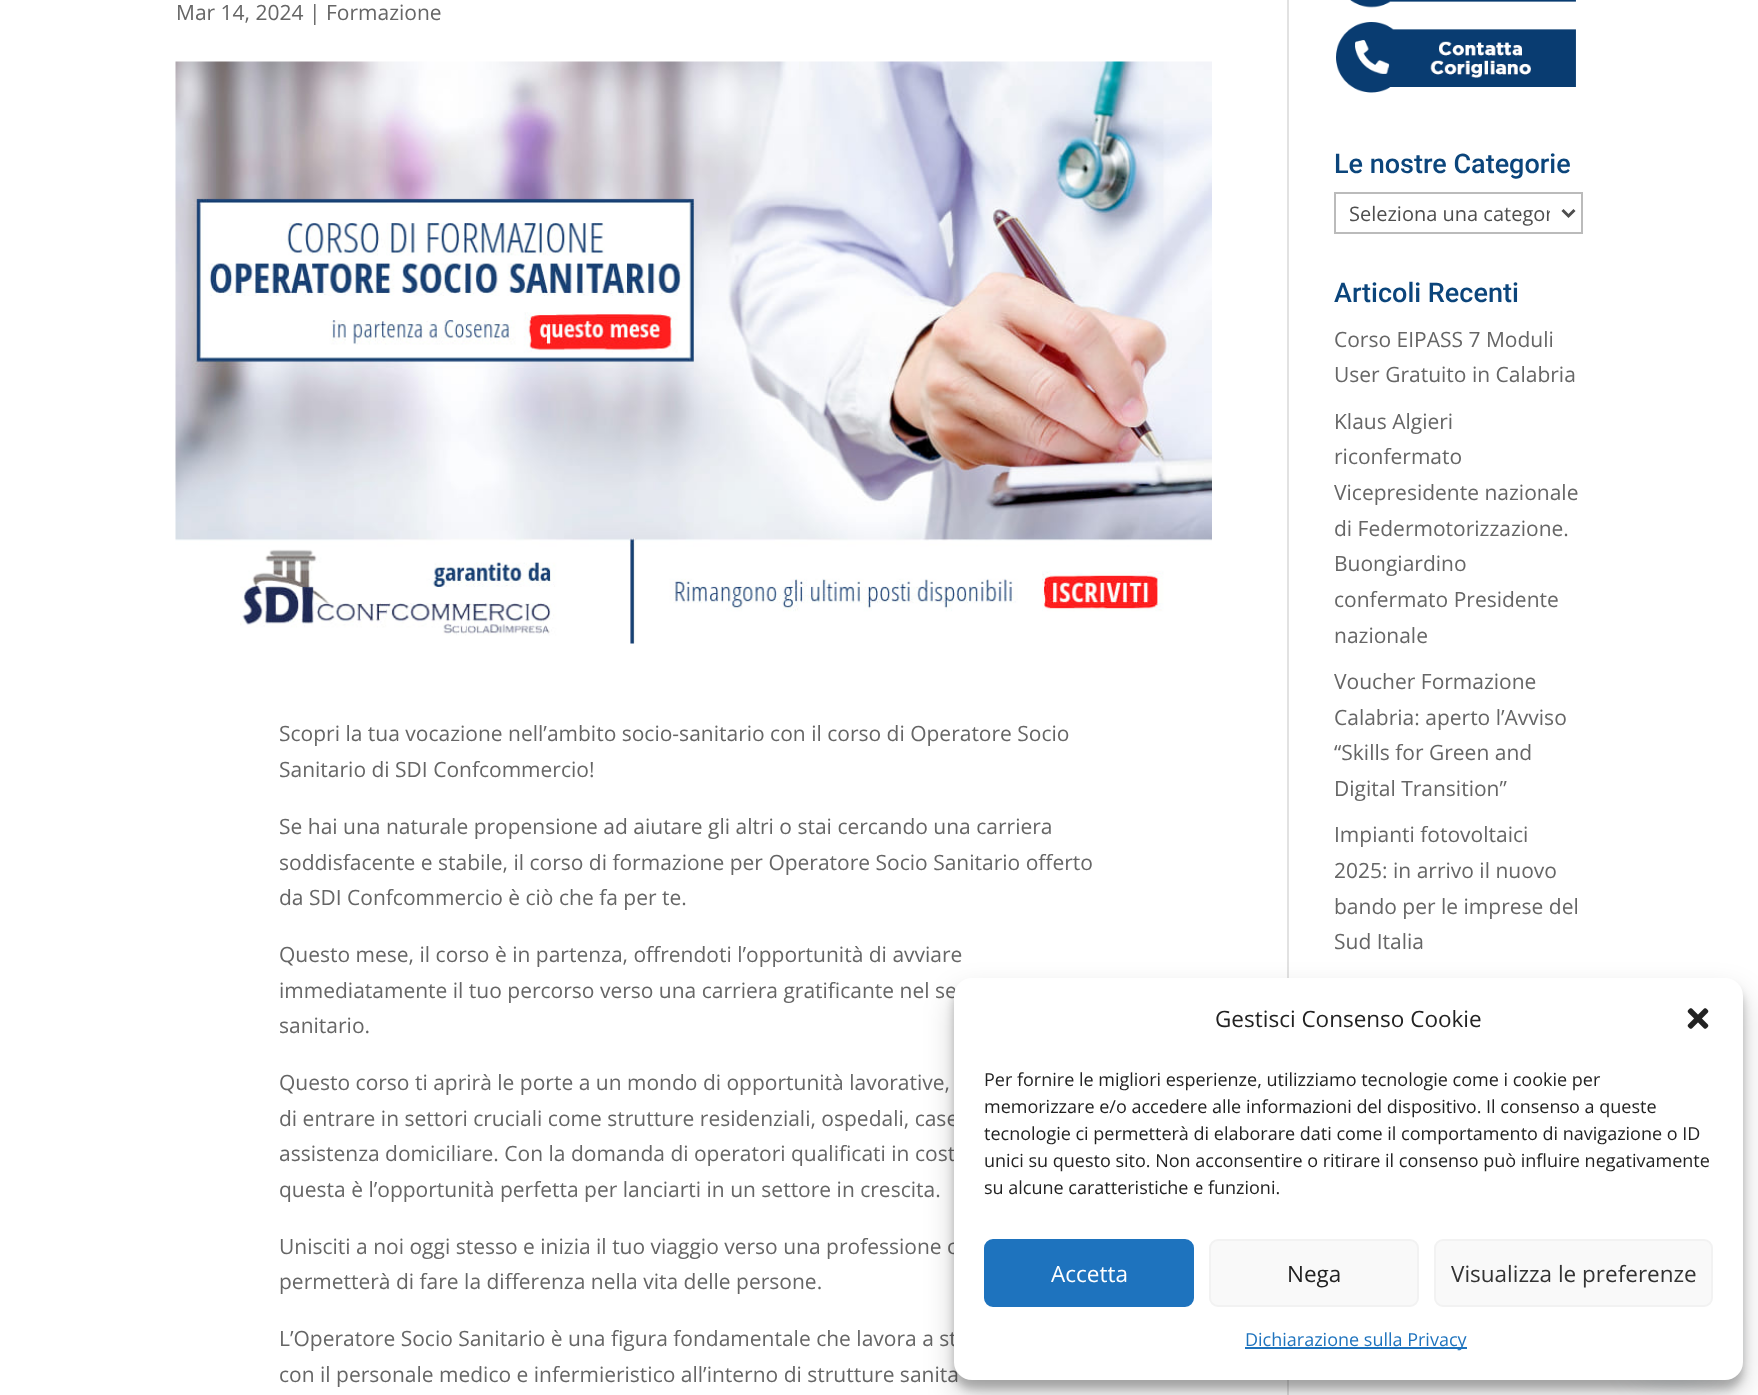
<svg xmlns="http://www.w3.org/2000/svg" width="1758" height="1395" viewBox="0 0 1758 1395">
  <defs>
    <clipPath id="clip1"><rect x="1349" y="198" width="201" height="30"/></clipPath>
  </defs>
  <rect width="100%" height="100%" fill="rgb(255,255,255)"/>
  <rect x="1287" y="0" width="2" height="1395" fill="rgb(226,226,226)"/>
  <text x="176" y="20" font-family="Open Sans" font-size="21" fill="rgb(102,102,102)">Mar 14, 2024 | Formazione</text>
  <image x="175" y="61" width="1037" height="583" href="pic1.png"/>
  <g font-family="Open Sans" font-size="21" fill="rgb(102,102,102)">
    <text>
      <tspan x="279" y="741">Scopri la tua vocazione nell’ambito socio-sanitario con il corso di Operatore Socio</tspan>
      <tspan x="279" y="777">Sanitario di SDI Confcommercio!</tspan>
    </text>
    <text>
      <tspan x="279" y="834">Se hai una naturale propensione ad aiutare gli altri o stai cercando una carriera</tspan>
      <tspan x="279" y="870">soddisfacente e stabile, il corso di formazione per Operatore Socio Sanitario offerto</tspan>
      <tspan x="279" y="905">da SDI Confcommercio è ciò che fa per te.</tspan>
    </text>
    <text>
      <tspan x="279" y="962">Questo mese, il corso è in partenza, offrendoti l’opportunità di avviare</tspan>
      <tspan x="279" y="998">immediatamente il tuo percorso verso una carriera gratificante nel se</tspan>
      <tspan x="279" y="1033">sanitario.</tspan>
    </text>
    <text>
      <tspan x="279" y="1090">Questo corso ti aprirà le porte a un mondo di opportunità lavorative,</tspan>
      <tspan x="279" y="1126">di entrare in settori cruciali come strutture residenziali, ospedali, case</tspan>
      <tspan x="279" y="1161">assistenza domiciliare. Con la domanda di operatori qualificati in cost</tspan>
      <tspan x="279" y="1197">questa è l’opportunità perfetta per lanciarti in un settore in crescita.</tspan>
    </text>
    <text>
      <tspan x="279" y="1254">Unisciti a noi oggi stesso e inizia il tuo viaggio verso una professione c</tspan>
      <tspan x="279" y="1289">permetterà di fare la differenza nella vita delle persone.</tspan>
    </text>
    <text>
      <tspan x="279" y="1346">L’Operatore Socio Sanitario è una figura fondamentale che lavora a st</tspan>
      <tspan x="279" y="1382">con il personale medico e infermieristico all’interno di strutture sanita</tspan>
    </text>
  </g>
  <image x="1350" y="0" width="226" height="8" href="pic2.png"/>
  <image x="1336" y="22" width="240" height="71" href="pic3.png"/>
  <text x="1334" y="173" font-family="Roboto" font-size="27" font-weight="500" fill="rgb(11,69,123)">Le nostre Categorie</text>
  <rect x="1335" y="193" width="247" height="40" fill="none" stroke="rgb(187,187,187)" stroke-width="2"/>
  <path d="M1562.5 210L1568.5 216L1574.5 210" fill="none" stroke="rgb(78,78,78)" stroke-width="3"/>
  <g clip-path="url(#clip1)">
    <text x="1349" y="221" font-family="Open Sans" font-size="20" fill="rgb(78,78,78)">Seleziona una categor</text>
  </g>
  <text x="1334" y="302" font-family="Roboto" font-size="27" font-weight="500" fill="rgb(11,69,123)">Articoli Recenti</text>
  <g font-family="Open Sans" font-size="21" fill="rgb(102,102,102)">
    <text>
      <tspan x="1334" y="347">Corso EIPASS 7 Moduli</tspan>
      <tspan x="1334" y="382">User Gratuito in Calabria</tspan>
    </text>
    <text>
      <tspan x="1334" y="429">Klaus Algieri</tspan>
      <tspan x="1334" y="464">riconfermato</tspan>
      <tspan x="1334" y="500">Vicepresidente nazionale</tspan>
      <tspan x="1334" y="536">di Federmotorizzazione.</tspan>
      <tspan x="1334" y="571">Buongiardino</tspan>
      <tspan x="1334" y="607">confermato Presidente</tspan>
      <tspan x="1334" y="643">nazionale</tspan>
    </text>
    <text>
      <tspan x="1334" y="689">Voucher Formazione</tspan>
      <tspan x="1334" y="725">Calabria: aperto l’Avviso</tspan>
      <tspan x="1334" y="760">“Skills for Green and</tspan>
      <tspan x="1334" y="796">Digital Transition”</tspan>
    </text>
    <text>
      <tspan x="1334" y="842">Impianti fotovoltaici</tspan>
      <tspan x="1334" y="878">2025: in arrivo il nuovo</tspan>
      <tspan x="1334" y="914">bando per le imprese del</tspan>
      <tspan x="1334" y="949">Sud Italia</tspan>
    </text>
  </g>
  <rect x="954" y="987" width="789" height="402" rx="18" fill="rgba(0,0,0,0.23)" filter="blur(4.5px)"/>
  <rect x="954" y="993" width="789" height="402" rx="18" fill="rgba(0,0,0,0.19)" filter="blur(15px)"/>
  <rect x="1634" y="1301" width="81" height="81" rx="40.5" fill="rgba(73,104,126,0.16)" filter="blur(18px)"/>
  <rect x="954" y="978" width="789" height="402" rx="18" fill="rgb(255,255,255)"/>
  <text x="1215" y="1027" font-family="Open Sans" font-size="22.5" fill="rgb(34,34,34)">Gestisci Consenso Cookie</text>
  <image x="1687" y="1008" width="22" height="21" href="pic4.png"/>
  <g font-family="Open Sans" font-size="18" fill="rgb(34,34,34)">
    <text>
      <tspan x="984" y="1086">Per fornire le migliori esperienze, utilizziamo tecnologie come i cookie per</tspan>
      <tspan x="984" y="1113">memorizzare e/o accedere alle informazioni del dispositivo. Il consenso a queste</tspan>
      <tspan x="984" y="1140">tecnologie ci permetterà di elaborare dati come il comportamento di navigazione o ID</tspan>
      <tspan x="984" y="1167">unici su questo sito. Non acconsentire o ritirare il consenso può influire negativamente</tspan>
      <tspan x="984" y="1194">su alcune caratteristiche e funzioni.</tspan>
    </text>
  </g>
  <rect x="985" y="1240" width="208" height="66" rx="8" fill="rgb(30,115,190)" stroke="rgb(30,115,190)" stroke-width="2"/>
  <text x="1051" y="1282" font-family="Open Sans" font-size="22.5" fill="rgb(255,255,255)">Accetta</text>
  <rect x="1210" y="1240" width="208" height="66" rx="8" fill="rgb(249,249,249)" stroke="rgb(242,242,242)" stroke-width="2"/>
  <text x="1287" y="1282" font-family="Open Sans" font-size="22.5" fill="rgb(34,34,34)">Nega</text>
  <rect x="1435" y="1240" width="277" height="66" rx="8" fill="rgb(249,249,249)" stroke="rgb(242,242,242)" stroke-width="2"/>
  <text x="1451" y="1282" font-family="Open Sans" font-size="22.5" fill="rgb(51,51,51)">Visualizza le preferenze</text>
  <rect x="1245" y="1347" width="222" height="2" fill="rgb(30,115,190)"/>
  <text x="1245" y="1346" font-family="Open Sans" font-size="18" fill="rgb(30,115,190)">Dichiarazione sulla Privacy</text>
</svg>
